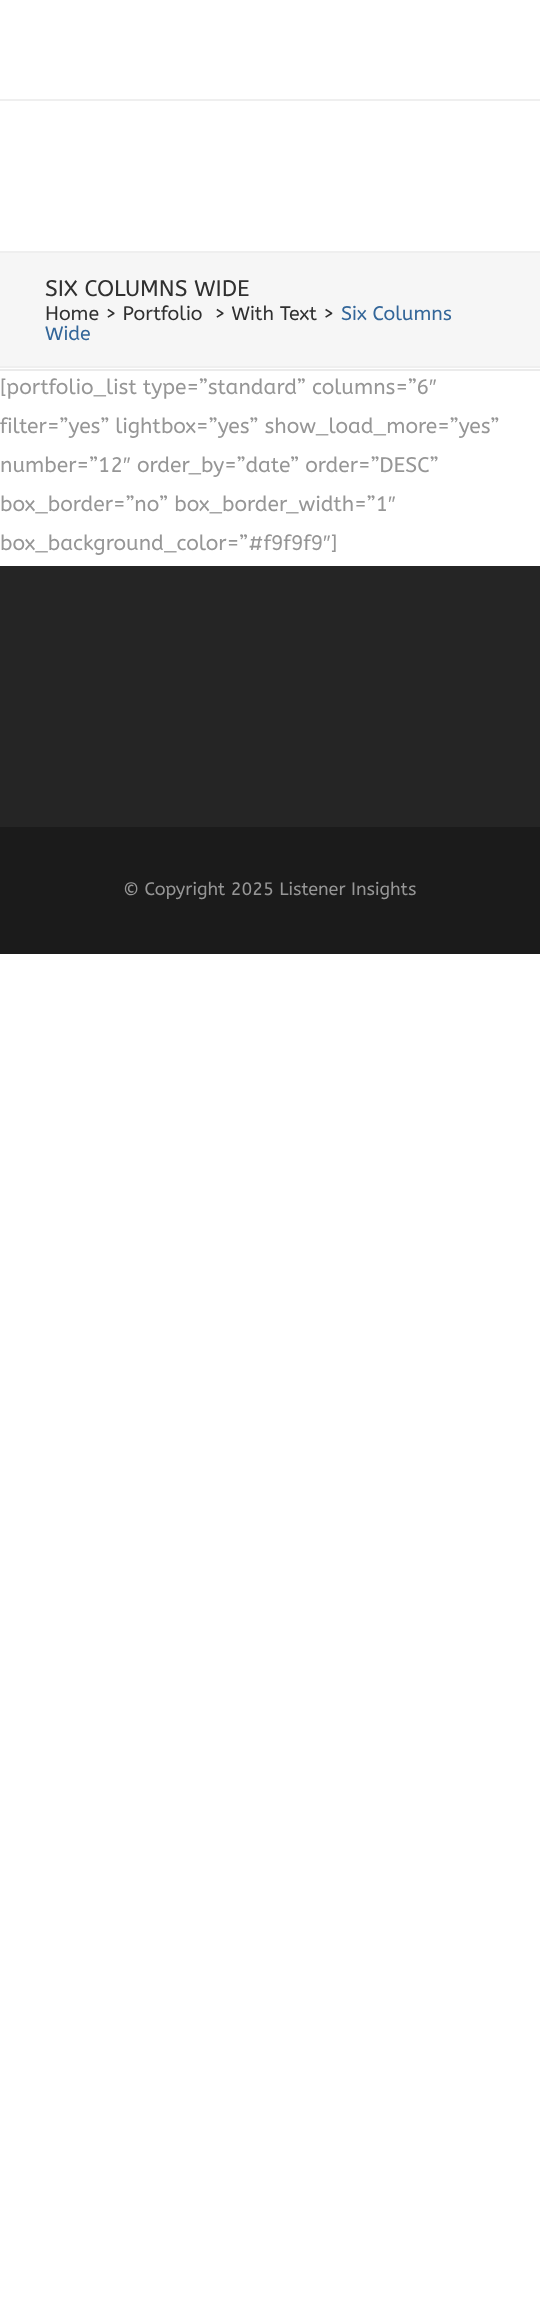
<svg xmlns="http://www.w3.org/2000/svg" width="540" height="2318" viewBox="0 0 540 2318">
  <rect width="100%" height="100%" fill="rgb(255,255,255)"/>
  <rect x="0" y="99" width="540" height="2" fill="rgb(239,239,239)"/>
  <rect x="0" y="251" width="540" height="2" fill="rgb(239,239,239)"/>
  <rect x="0" y="253" width="540" height="113" fill="rgb(246,246,246)"/>
  <rect x="0" y="366" width="540" height="2" fill="rgb(239,239,239)"/>
  <text x="45" y="296" font-family="ABeeZee" font-size="22.5" fill="rgb(48,48,48)">SIX COLUMNS WIDE</text>
  <g font-family="ABeeZee" font-size="19.5" fill="rgb(48,48,48)">
    <text x="45" y="320">Home &gt; Portfolio</text>
    <text x="214" y="320">&gt; With Text &gt;</text>
  </g>
  <g font-family="ABeeZee" font-size="19.5" fill="rgb(51,102,153)">
    <text x="341" y="320">Six Columns</text>
    <text x="45" y="340">Wide</text>
  </g>
  <rect x="0" y="369" width="540" height="2" fill="rgb(235,235,235)"/>
  <text x="0" y="394" font-family="ABeeZee" font-size="21" fill="rgb(150,150,150)">[portfolio_list type=”standard” columns=”6</text>
  <text x="429" y="394" font-family="Liberation Sans" font-size="21" fill="rgb(150,150,150)">″</text>
  <g font-family="ABeeZee" font-size="21" fill="rgb(150,150,150)">
    <text>
      <tspan x="0" y="433">filter=”yes” lightbox=”yes” show_load_more=”yes”</tspan>
      <tspan x="0" y="472">number=”12</tspan>
    </text>
  </g>
  <text x="123" y="472" font-family="Liberation Sans" font-size="21" fill="rgb(150,150,150)">″</text>
  <g font-family="ABeeZee" font-size="21" fill="rgb(150,150,150)">
    <text x="137" y="472">order_by=”date” order=”DESC”</text>
    <text x="0" y="511">box_border=”no” box_border_width=”1</text>
  </g>
  <text x="388" y="511" font-family="Liberation Sans" font-size="21" fill="rgb(150,150,150)">″</text>
  <text x="0" y="550" font-family="ABeeZee" font-size="21" fill="rgb(150,150,150)">box_background_color=”#f9f9f9</text>
  <text x="323" y="550" font-family="Liberation Sans" font-size="21" fill="rgb(150,150,150)">″</text>
  <text x="331" y="550" font-family="ABeeZee" font-size="21" fill="rgb(150,150,150)">]</text>
  <rect x="0" y="566" width="540" height="261" fill="rgb(37,37,37)"/>
  <rect x="0" y="827" width="540" height="127" fill="rgb(27,27,27)"/>
  <text x="123" y="895" font-family="ABeeZee" font-size="18" fill="rgb(150,150,150)">© Copyright 2025 Listener Insights</text>
</svg>
